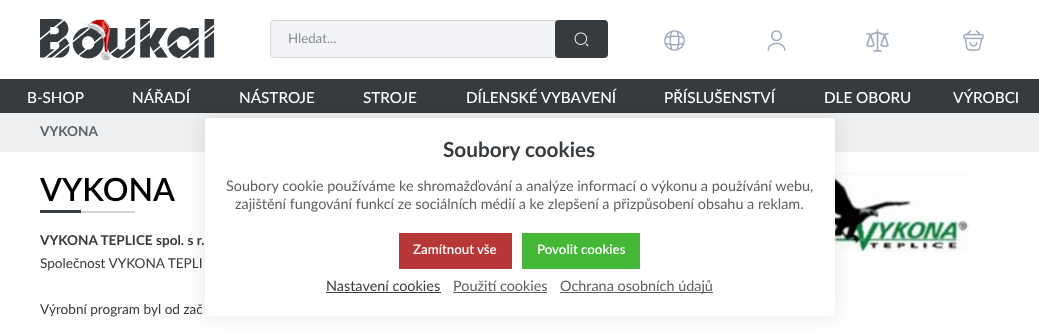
<svg xmlns="http://www.w3.org/2000/svg" width="1039" height="336" viewBox="0 0 1039 336">
  <rect width="100%" height="100%" fill="rgb(255,255,255)"/>
  <image x="40" y="19" width="175" height="41" href="pic1.png"/>
  <rect x="270.5" y="20.5" width="288" height="37" rx="3.5" fill="rgb(242,244,248)" stroke="rgb(216,216,216)"/>
  <text x="288" y="43" font-family="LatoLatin" font-size="13.25" fill="rgb(137,138,148)">Hledat...</text>
  <rect x="555" y="20" width="53" height="38" rx="4" fill="rgb(54,59,64)"/>
  <image x="574" y="32" width="15" height="15" href="pic2.png"/>
  <image x="664" y="30" width="21" height="21" href="pic3.png"/>
  <image x="767" y="30" width="19" height="21" href="pic4.png"/>
  <image x="866" y="29" width="23" height="23" href="pic5.png"/>
  <image x="963" y="30" width="21" height="21" href="pic6.png"/>
  <rect x="0" y="79" width="1039" height="34" fill="rgb(54,59,64)"/>
  <g font-family="LatoLatin" font-size="15.25" font-weight="500" fill="rgb(255,255,255)">
    <text x="27" y="103">B-SHOP</text>
    <text x="132" y="103">NÁŘADÍ</text>
    <text x="239" y="103">NÁSTROJE</text>
    <text x="363" y="103">STROJE</text>
    <text x="466" y="103">DÍLENSKÉ VYBAVENÍ</text>
    <text x="664" y="103">PŘÍSLUŠENSTVÍ</text>
    <text x="824" y="103">DLE OBORU</text>
    <text x="953" y="103">VÝROBCI</text>
  </g>
  <rect x="0" y="113" width="1039" height="39" fill="rgb(238,239,240)"/>
  <text x="40" y="136" font-family="LatoLatin" font-size="13.6" font-weight="bold" fill="rgb(94,98,102)">VYKONA</text>
  <text x="40" y="201" font-family="LatoLatin" font-size="32" font-weight="600" fill="rgb(0,0,0)">VYKONA</text>
  <rect x="40" y="210" width="41" height="3" fill="rgb(54,59,64)"/>
  <rect x="81" y="211" width="54" height="2" fill="rgb(214,214,214)"/>
  <text x="40" y="245" font-family="LatoLatin" font-size="13.6" font-weight="bold" fill="rgb(54,59,64)">VYKONA TEPLICE spol. s r.</text>
  <g font-family="LatoLatin" font-size="13.6" fill="rgb(54,59,64)">
    <text x="40" y="268">Společnost VYKONA TEPLI</text>
    <text x="40" y="314">Výrobní program byl od zač</text>
  </g>
  <image x="835" y="172" width="134" height="80" href="pic7.png"/>
  <rect x="205" y="118" width="630" height="198" fill="rgba(0,0,0,0.1)" filter="blur(10px)"/>
  <rect x="205" y="118" width="630" height="198" fill="rgb(255,255,255)"/>
  <text x="443" y="157" font-family="LatoLatin" font-size="20.75" font-weight="bold" fill="rgb(54,59,64)">Soubory cookies</text>
  <g font-family="LatoLatin" font-size="14.4" fill="rgb(94,94,94)">
    <text x="226" y="191">Soubory cookie používáme ke shromažďování a analýze informací o výkonu a používání webu,</text>
    <text x="235" y="209">zajištění fungování funkcí ze sociálních médií a ke zlepšení a přizpůsobení obsahu a reklam.</text>
  </g>
  <rect x="399" y="233" width="113" height="36" fill="rgb(183,54,54)"/>
  <text x="413" y="254" font-family="LatoLatin" font-size="13.25" font-weight="600" fill="rgb(255,255,255)">Zamítnout vše</text>
  <rect x="522" y="233" width="118" height="36" fill="rgb(68,183,54)"/>
  <text x="537" y="254" font-family="LatoLatin" font-size="13.25" font-weight="600" fill="rgb(255,255,255)">Povolit cookies</text>
  <text x="326" y="291" font-family="LatoLatin" font-size="14.4" fill="rgb(54,59,64)">Nastavení cookies</text>
  <rect x="326" y="292" width="115" height="1" fill="rgb(54,59,64)"/>
  <text x="453" y="291" font-family="LatoLatin" font-size="14.4" fill="rgb(94,94,94)">Použití cookies</text>
  <rect x="453" y="292" width="94" height="1" fill="rgb(94,94,94)"/>
  <rect x="560" y="292" width="153" height="1" fill="rgb(94,94,94)"/>
  <text x="560" y="291" font-family="LatoLatin" font-size="14.4" fill="rgb(94,94,94)">Ochrana osobních údajů</text>
</svg>
